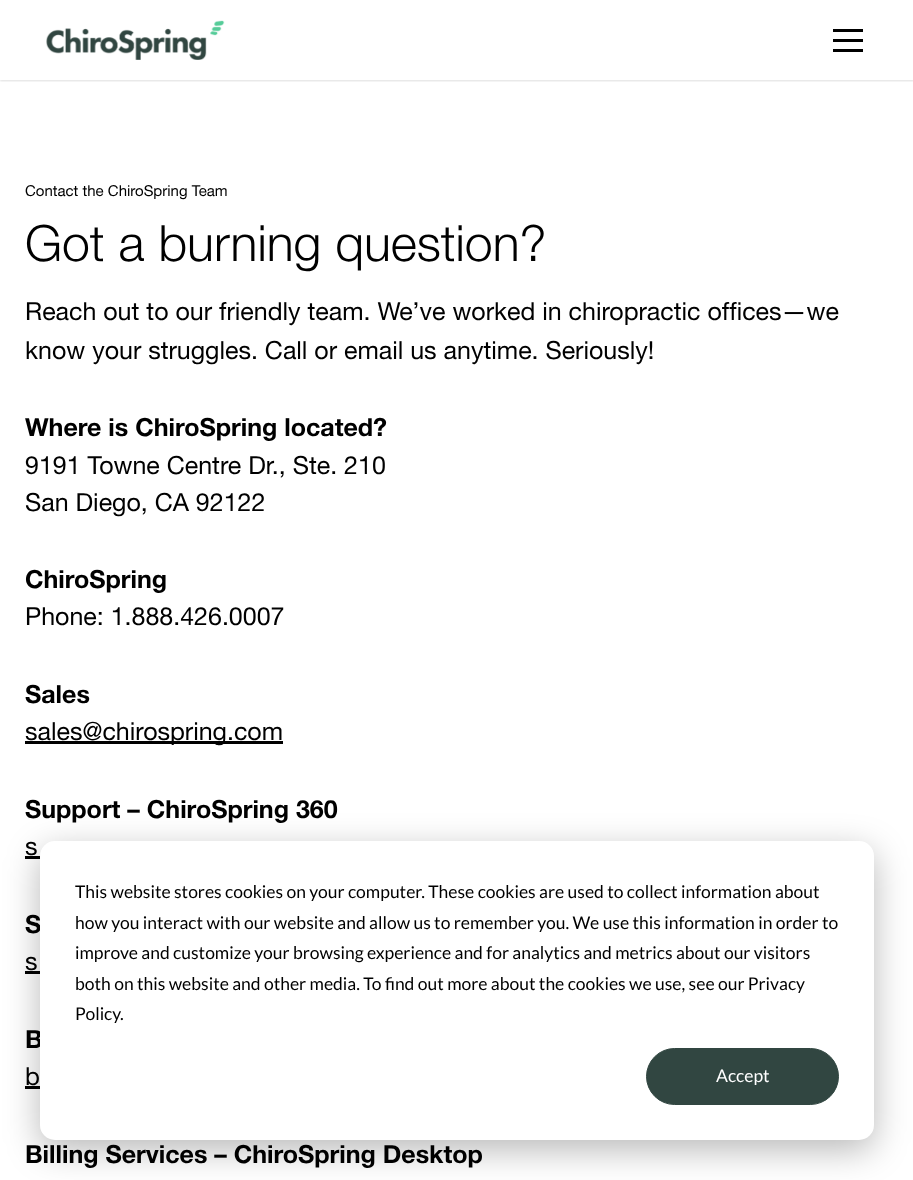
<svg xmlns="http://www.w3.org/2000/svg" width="913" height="1180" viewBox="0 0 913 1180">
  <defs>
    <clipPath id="clip1"><rect x="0" y="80" width="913" height="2"/></clipPath>
  </defs>
  <rect width="100%" height="100%" fill="rgb(255,255,255)"/>
  <g clip-path="url(#clip1)">
    <rect x="0" y="1" width="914" height="80" fill="rgba(0,0,0,0.13)" filter="blur(1px)"/>
  </g>
  <image x="46" y="20" width="179" height="40" href="pic1.png"/>
  <rect x="833" y="29" width="30" height="3" fill="rgb(0,0,0)"/>
  <rect x="833" y="39" width="30" height="3" fill="rgb(0,0,0)"/>
  <rect x="833" y="49" width="30" height="3" fill="rgb(0,0,0)"/>
  <text x="25" y="196" font-family="Helvetica Neue" font-size="15" fill="rgb(0,0,0)">Contact the ChiroSpring Team</text>
  <text x="25" y="261" font-family="Helvetica Neue" font-size="50" font-weight="300" fill="rgb(0,0,0)">Got a burning question?</text>
  <g font-family="Helvetica Neue" font-size="25" fill="rgb(0,0,0)">
    <text>
      <tspan x="25" y="320">Reach out to our friendly team. We’ve worked in chiropractic offices—we</tspan>
      <tspan x="25" y="359">know your struggles. Call or email us anytime. Seriously!</tspan>
    </text>
  </g>
  <text x="25" y="436" font-family="Helvetica Neue" font-size="25" font-weight="bold" fill="rgb(0,0,0)">Where is ChiroSpring located?</text>
  <g font-family="Helvetica Neue" font-size="25" fill="rgb(0,0,0)">
    <text>
      <tspan x="25" y="474">9191 Towne Centre Dr., Ste. 210</tspan>
      <tspan x="25" y="511">San Diego, CA 92122</tspan>
    </text>
  </g>
  <text x="25" y="588" font-family="Helvetica Neue" font-size="25" font-weight="bold" fill="rgb(0,0,0)">ChiroSpring</text>
  <text x="25" y="625" font-family="Helvetica Neue" font-size="25" fill="rgb(0,0,0)">Phone: 1.888.426.0007</text>
  <text x="25" y="703" font-family="Helvetica Neue" font-size="25" font-weight="bold" fill="rgb(0,0,0)">Sales</text>
  <rect x="25" y="741" width="258" height="3" fill="rgb(0,0,0)"/>
  <text x="25" y="740" font-family="Helvetica Neue" font-size="25" fill="rgb(0,0,0)">sales@chirospring.com</text>
  <text x="25" y="818" font-family="Helvetica Neue" font-size="25" font-weight="bold" fill="rgb(0,0,0)">Support – ChiroSpring 360</text>
  <text x="25" y="855" font-family="Helvetica Neue" font-size="25" fill="rgb(0,0,0)">s</text>
  <rect x="25" y="856" width="15" height="3" fill="rgb(0,0,0)"/>
  <text x="25" y="933" font-family="Helvetica Neue" font-size="25" font-weight="bold" fill="rgb(0,0,0)">S</text>
  <text x="25" y="970" font-family="Helvetica Neue" font-size="25" fill="rgb(0,0,0)">s</text>
  <rect x="25" y="971" width="15" height="3" fill="rgb(0,0,0)"/>
  <text x="25" y="1048" font-family="Helvetica Neue" font-size="25" font-weight="bold" fill="rgb(0,0,0)">B</text>
  <text x="25" y="1085" font-family="Helvetica Neue" font-size="25" fill="rgb(0,0,0)">b</text>
  <rect x="25" y="1086" width="15" height="3" fill="rgb(0,0,0)"/>
  <text x="25" y="1163" font-family="Helvetica Neue" font-size="25" font-weight="bold" fill="rgb(0,0,0)">Billing Services – ChiroSpring Desktop</text>
  <rect x="40" y="851" width="834" height="299" rx="15" fill="rgba(0,0,0,0.28)" filter="blur(17.5px)"/>
  <rect x="40" y="841" width="834" height="299" rx="15" fill="rgb(255,255,255)"/>
  <g font-family="Lato" font-size="17.5" fill="rgb(0,0,0)">
    <text>
      <tspan x="75" y="898">This website stores cookies on your computer. These cookies are used to collect information about</tspan>
      <tspan x="75" y="929">how you interact with our website and allow us to remember you. We use this information in order to</tspan>
      <tspan x="75" y="959">improve and customize your browsing experience and for analytics and metrics about our visitors</tspan>
      <tspan x="75" y="990">both on this website and other media. To find out more about the cookies we use, see our Privacy</tspan>
      <tspan x="75" y="1020">Policy.</tspan>
    </text>
  </g>
  <rect x="646.5" y="1048.5" width="192" height="56" rx="28" fill="rgb(49,70,65)" stroke="rgb(49,70,65)"/>
  <text x="716" y="1082" font-family="Lato" font-size="17.5" fill="rgb(255,255,255)">Accept</text>
</svg>
